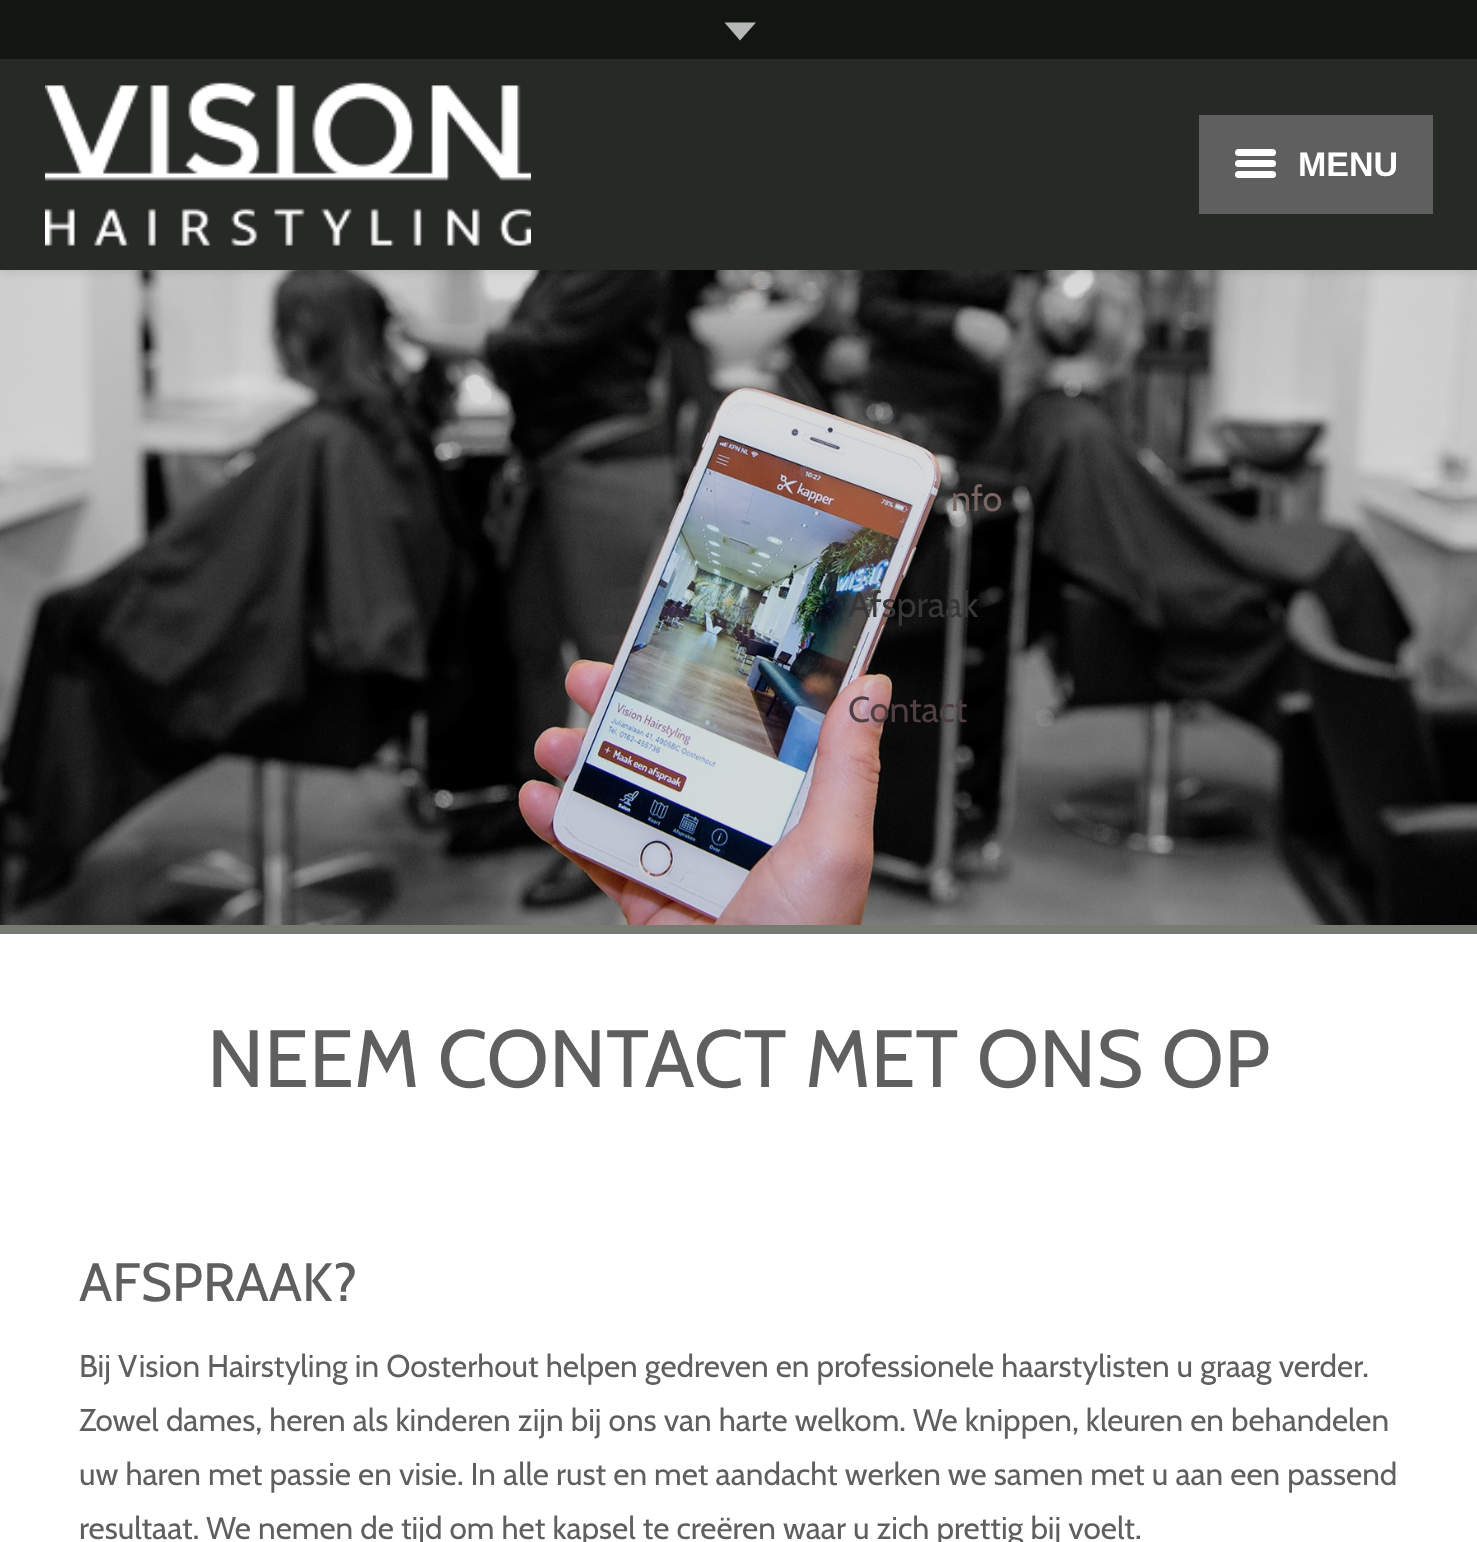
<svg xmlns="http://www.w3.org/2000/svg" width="1477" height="1542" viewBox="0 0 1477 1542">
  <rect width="100%" height="100%" fill="rgb(255,255,255)"/>
  <image x="0" y="270" width="1477" height="655" href="pic2.png"/>
  <rect x="0" y="-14" width="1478" height="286" fill="rgba(0,0,0,0.1)" filter="blur(4.5px)"/>
  <rect x="0" y="61" width="1477" height="209" fill="rgb(38,41,37)"/>
  <rect x="0" y="0" width="1477" height="59" fill="rgb(19,21,19)"/>
  <rect x="0" y="59" width="1477" height="2" fill="rgb(39,40,39)"/>
  <path d="M724.5 22.5H756L740 40.5Z" fill="rgb(183,183,183)"/>
  <image x="45" y="82" width="486" height="164" href="pic1.png"/>
  <rect x="1199" y="115" width="234" height="99" fill="rgb(95,95,95)"/>
  <rect x="1235" y="160" width="41" height="7" rx="3.5" fill="rgb(255,255,255)"/>
  <rect x="1235" y="149" width="41" height="7" rx="3.5" fill="rgb(255,255,255)"/>
  <rect x="1235" y="171" width="41" height="7" rx="3.5" fill="rgb(255,255,255)"/>
  <text x="1298" y="176" font-family="Liberation Sans" font-size="34" font-weight="bold" fill="rgb(255,255,255)">MENU</text>
  <text x="951" y="511" font-family="Cabin" font-size="36" fill="rgb(122,102,97)">nfo</text>
  <text x="848" y="617" font-family="Cabin" font-size="36" fill="rgb(55,54,56)">Afspraak</text>
  <text x="848" y="722" font-family="Cabin" font-size="36" fill="rgb(78,63,65)">Contact</text>
  <rect x="0" y="925" width="1477" height="9" fill="rgb(118,122,112)"/>
  <text x="207" y="1087" font-family="Cabin" font-size="81" fill="rgb(95,95,95)">NEEM CONTACT MET ONS OP</text>
  <text x="79" y="1301" font-family="Cabin" font-size="54" fill="rgb(95,95,95)">AFSPRAAK?</text>
  <g font-family="Cabin" font-size="31.5" fill="rgb(95,95,95)">
    <text>
      <tspan x="79" y="1377">Bij Vision Hairstyling in Oosterhout helpen gedreven en professionele haarstylisten u graag verder.</tspan>
      <tspan x="79" y="1431">Zowel dames, heren als kinderen zijn bij ons van harte welkom. We knippen, kleuren en behandelen</tspan>
      <tspan x="79" y="1485">uw haren met passie en visie. In alle rust en met aandacht werken we samen met u aan een passend</tspan>
      <tspan x="79" y="1539">resultaat. We nemen de tijd om het kapsel te creëren waar u zich prettig bij voelt.</tspan>
    </text>
  </g>
</svg>
